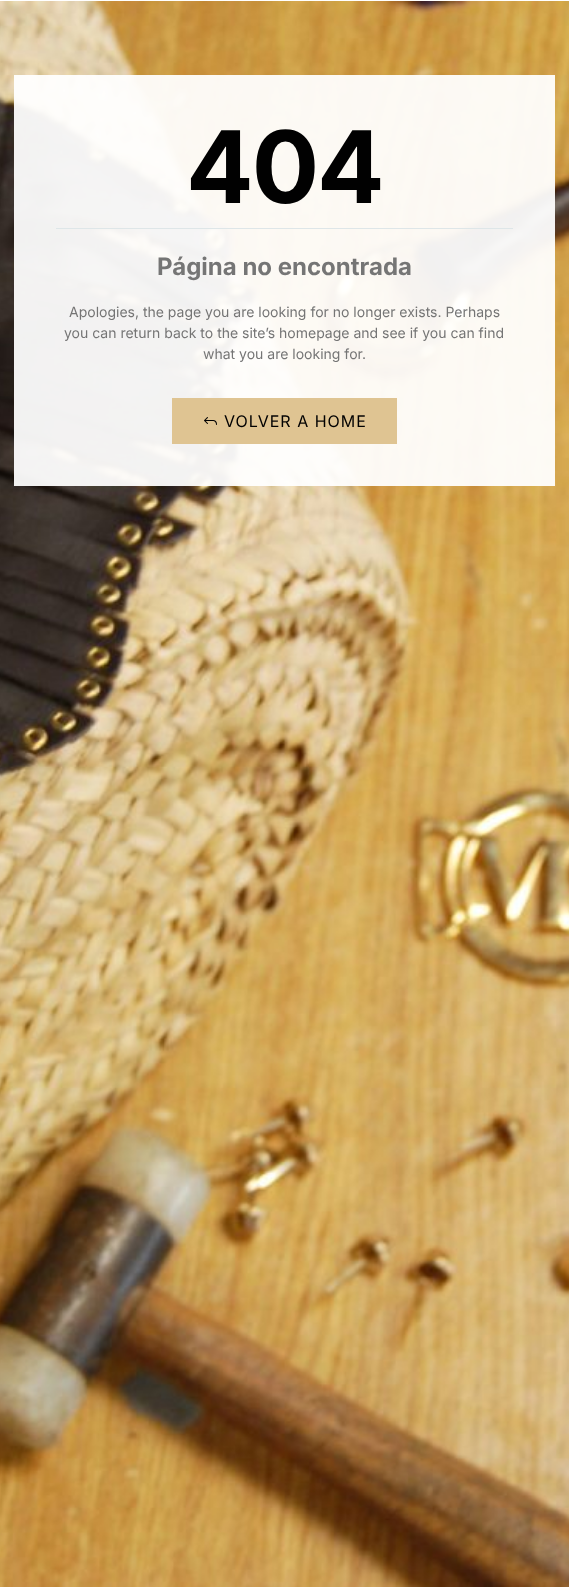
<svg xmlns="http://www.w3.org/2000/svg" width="569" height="1587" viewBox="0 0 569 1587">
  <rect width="100%" height="100%" fill="rgb(255,255,255)"/>
  <image x="0" y="1" width="569" height="1586" href="pic1.png"/>
  <rect x="14" y="75" width="541" height="411" fill="rgba(255,255,255,0.94)"/>
  <text x="186" y="203" font-family="Inter" font-size="100" font-weight="bold" letter-spacing="-2" fill="rgb(1,1,1)">404</text>
  <rect x="56" y="228" width="457" height="1" fill="rgb(222,230,232)"/>
  <text x="157" y="275" font-family="Inter" font-size="24" font-weight="bold" fill="rgb(117,117,117)">Página no encontrada</text>
  <g font-family="Inter" font-size="14" fill="rgb(117,117,117)">
    <text x="69" y="317">Apologies, the page you are looking for no longer exists. Perhaps</text>
    <text x="64" y="338">you can return back to the site’s homepage and see if you can find</text>
    <text x="203" y="359">what you are looking for.</text>
  </g>
  <rect x="172" y="398" width="225" height="46" fill="rgb(223,196,146)"/>
  <image x="204" y="417" width="13" height="8" href="pic2.png"/>
  <text x="224" y="427" font-family="Inter" font-size="16" letter-spacing="1" fill="rgb(1,1,1)">VOLVER A HOME</text>
</svg>
